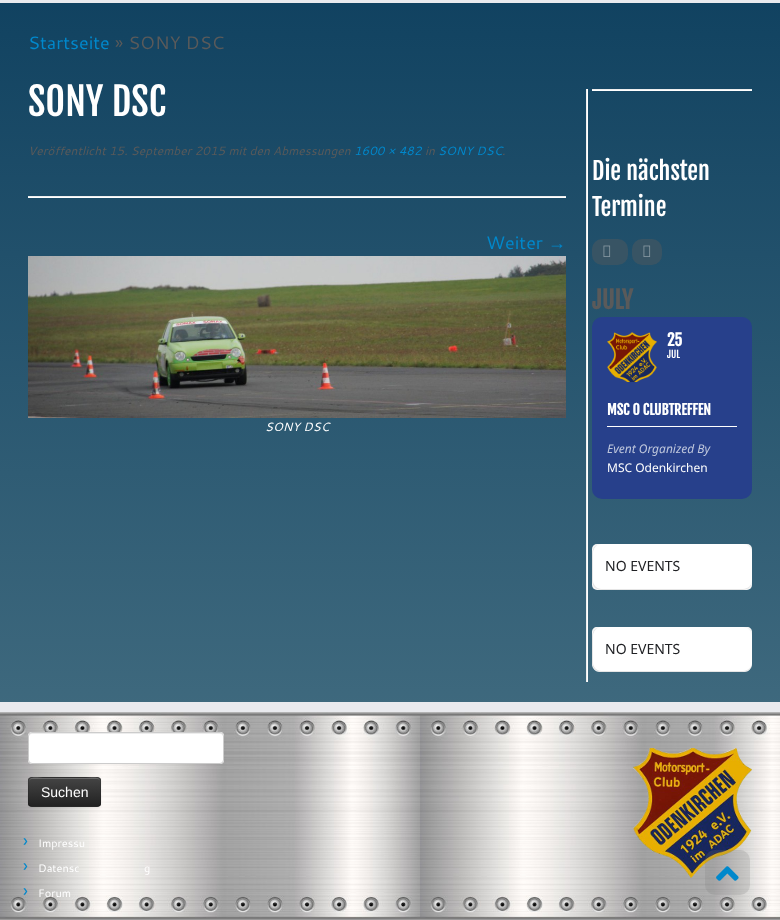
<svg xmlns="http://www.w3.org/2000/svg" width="780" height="920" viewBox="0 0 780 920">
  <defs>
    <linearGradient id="g1" gradientUnits="userSpaceOnUse" x1="390" y1="-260" x2="390" y2="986"><stop offset="0" stop-color="rgb(0,52,86)"/><stop offset="1" stop-color="rgb(80,120,137)"/></linearGradient>
    <clipPath id="clip1"><rect x="28" y="777" width="73" height="30" rx="4"/></clipPath>
    <linearGradient id="g2" gradientUnits="userSpaceOnUse" x1="65" y1="778" x2="65" y2="806"><stop offset="0" stop-color="rgb(68,68,68)"/><stop offset="1" stop-color="rgb(34,34,34)"/></linearGradient>
  </defs>
  <rect width="100%" height="100%" fill="rgb(255,255,255)"/>
  <rect x="0" y="3" width="780" height="699" fill="url(#g1)"/>
  <rect x="0" y="0" width="780" height="3" fill="rgb(233,234,238)"/>
  <text x="28" y="49" font-family="Cantarell" font-size="18" fill="rgb(0,136,204)">Startseite</text>
  <text x="115" y="49" font-family="Cantarell" font-size="18" fill="rgb(90,90,90)">» SONY DSC</text>
  <text x="28" y="116" font-family="Fjalla One" font-size="38" fill="rgb(255,255,255)">SONY DSC</text>
  <text x="28" y="155" font-family="Cantarell" font-size="12" font-style="italic" fill="rgb(90,90,90)">Veröffentlicht 15. September 2015 mit den Abmessungen</text>
  <text x="354" y="155" font-family="Cantarell" font-size="12" font-style="italic" fill="rgb(0,136,204)">1600 × 482</text>
  <text x="425" y="155" font-family="Cantarell" font-size="12" font-style="italic" fill="rgb(90,90,90)">in</text>
  <text x="438" y="155" font-family="Cantarell" font-size="12" font-style="italic" fill="rgb(0,136,204)">SONY DSC</text>
  <text x="502" y="155" font-family="Cantarell" font-size="12" font-style="italic" fill="rgb(90,90,90)">.</text>
  <rect x="28" y="196" width="538" height="1" fill="rgb(238,238,238)"/>
  <rect x="28" y="197" width="538" height="1" fill="rgb(255,255,255)"/>
  <text x="486" y="249" font-family="Cantarell" font-size="18" fill="rgb(0,136,204)">Weiter</text>
  <text x="548" y="249" font-family="Liberation Serif" font-size="18" fill="rgb(0,136,204)">→</text>
  <image x="28" y="256" width="538" height="162" href="pic1.png"/>
  <text x="265" y="431" font-family="Cantarell" font-size="12" font-style="italic" fill="rgb(255,255,255)">SONY DSC</text>
  <rect x="586" y="89" width="1" height="593" fill="rgb(238,238,238)"/>
  <rect x="587" y="89" width="1" height="593" fill="rgb(255,255,255)"/>
  <rect x="592" y="89" width="160" height="1" fill="rgb(238,238,238)"/>
  <rect x="592" y="90" width="160" height="1" fill="rgb(255,255,255)"/>
  <g font-family="Fjalla One" font-size="24" fill="rgb(255,255,255)">
    <text>
      <tspan x="592" y="180">Die nächsten</tspan>
      <tspan x="592" y="216">Termine</tspan>
    </text>
  </g>
  <rect x="592" y="239" width="36" height="26" rx="10" fill="rgb(56,84,100)"/>
  <image x="603" y="245" width="8" height="12" href="pic2.png"/>
  <rect x="632" y="239" width="30" height="26" rx="10" fill="rgb(56,84,100)"/>
  <image x="643" y="245" width="8" height="12" href="pic2.png"/>
  <text x="592" y="309" font-family="Fjalla One" font-size="24" font-weight="bold" fill="rgb(90,90,90)">JULY</text>
  <rect x="592" y="317" width="160" height="182" rx="10" fill="rgb(39,64,139)"/>
  <image x="607" y="332" width="50" height="50" href="pic3.png"/>
  <text x="667" y="346" font-family="Fjalla One" font-size="16" font-weight="bold" fill="rgb(255,255,255)">25</text>
  <text x="667" y="358" font-family="Fjalla One" font-size="10" fill="rgb(255,255,255)">JUL</text>
  <rect x="607" y="426" width="130" height="1" fill="rgb(255,255,255)"/>
  <text x="607" y="415" font-family="Fjalla One" font-size="14" font-weight="bold" fill="rgb(255,255,255)">MSC O CLUBTREFFEN</text>
  <text x="607" y="453" font-family="Noto Sans" font-size="12" font-style="italic" fill="rgb(190,198,220)">Event Organized By</text>
  <text x="607" y="472" font-family="Noto Sans" font-size="12" fill="rgb(255,255,255)">MSC Odenkirchen</text>
  <rect x="592" y="544" width="160" height="46" rx="5" fill="rgb(245,245,245)"/>
  <path d="M602 544H742C748 544 752 548 752 554V580C752 586 748 590 742 590H602C596 590 592 586 592 580V554C592 548 596 544 602 544ZM602 544H742C748 544 752 548 752 554V580C752 585 748 589 742 589H602C597 589 593 585 593 580V554C593 548 597 544 602 544Z" fill="rgb(229,229,229)" fill-rule="evenodd"/>
  <path d="M602 544C597 544 593 548 593 554V580C593 585 597 589 602 589H742C748 589 752 585 752 580V554C752 548 748 544 742 544Z" fill="rgb(255,255,255)"/>
  <text x="605" y="571" font-family="Noto Sans" font-size="14" fill="rgb(32,33,36)">NO EVENTS</text>
  <path d="M597 627H747C750 627 752 629 752 632V664C752 668.5 748.5 672 744 672H600C595.5 672 592 668.5 592 664V632C592 629 594 627 597 627Z" fill="rgb(245,245,245)"/>
  <path d="M602 627H742C748 627 752 631 752 637V662C752 668 748 672 742 672H602C596 672 592 668 592 662V637C592 631 596 627 602 627ZM602 627H742C748 627 752 631 752 637V662C752 667 748 671 742 671H602C597 671 593 667 593 662V637C593 631 597 627 602 627Z" fill="rgb(229,229,229)" fill-rule="evenodd"/>
  <path d="M602 627C597 627 593 631 593 637V662C593 667 597 671 602 671H742C748 671 752 667 752 662V637C752 631 748 627 742 627Z" fill="rgb(255,255,255)"/>
  <text x="605" y="654" font-family="Noto Sans" font-size="14" fill="rgb(32,33,36)">NO EVENTS</text>
  <image x="0" y="712" width="780" height="208" href="pic4.png"/>
  <rect x="0" y="702" width="780" height="10" fill="rgb(233,234,238)"/>
  <rect x="28" y="732" width="196" height="32" rx="4" fill="rgb(255,255,255)"/>
  <path d="M32 734H220C222 734 223 735 223 737C223 735 222 733 220 733H32C30 733 29 735 29 737C29 735 30 734 32 734Z" fill="rgb(236,236,236)"/>
  <rect x="28.5" y="732.5" width="195" height="31" rx="3.5" fill="none" stroke="rgb(204,204,204)"/>
  <rect x="28" y="778" width="73" height="30" rx="4" fill="rgba(0,0,0,0.05)" filter="blur(1px)"/>
  <rect x="28" y="777" width="73" height="30" rx="4" fill="rgb(54,54,54)"/>
  <g clip-path="url(#clip1)">
    <rect x="28" y="778" width="73" height="28" fill="url(#g2)"/>
  </g>
  <path d="M32 779H97C99 779 100 780 100 782C100 775 90 778 86 778H43C39 778 29 775 29 782C29 780 30 779 32 779Z" fill="rgba(255,255,255,0.2)"/>
  <path d="M99.5 805.5L97.5 806.5H31.5L29.5 805.5" fill="none" stroke="rgba(0,0,0,0.25)"/>
  <path d="M29.5 805.5C27.5 803.5 28.5 795 28.5 792C28.5 775.5 26 777.5 43 777.5H86C103 777.5 100.5 775.5 100.5 792C100.5 795 101.5 803.5 99.5 805.5" fill="none" stroke="rgba(0,0,0,0.1)"/>
  <text x="41" y="797" font-family="Liberation Sans" font-size="14" fill="rgb(255,255,255)">Suchen</text>
  <text x="23" y="847" font-family="Cantarell" font-size="18" fill="rgb(0,136,204)">›</text>
  <text x="38" y="847" font-family="Cantarell" font-size="11" fill="rgb(255,255,255)">Impressu</text>
  <text x="23" y="872" font-family="Cantarell" font-size="18" fill="rgb(0,136,204)">›</text>
  <g font-family="Cantarell" font-size="11" fill="rgb(255,255,255)">
    <text x="38" y="872">Datensc</text>
    <text x="144" y="872">g</text>
  </g>
  <text x="23" y="897" font-family="Cantarell" font-size="18" fill="rgb(0,136,204)">›</text>
  <text x="38" y="897" font-family="Cantarell" font-size="11" fill="rgb(255,255,255)">Forum</text>
  <image x="633" y="748" width="119" height="130" href="pic5.png"/>
  <rect x="705" y="850" width="45" height="45" rx="10" fill="rgba(119,119,119,0.2)"/>
  <image x="716" y="866" width="23" height="15" href="pic6.png"/>
</svg>
